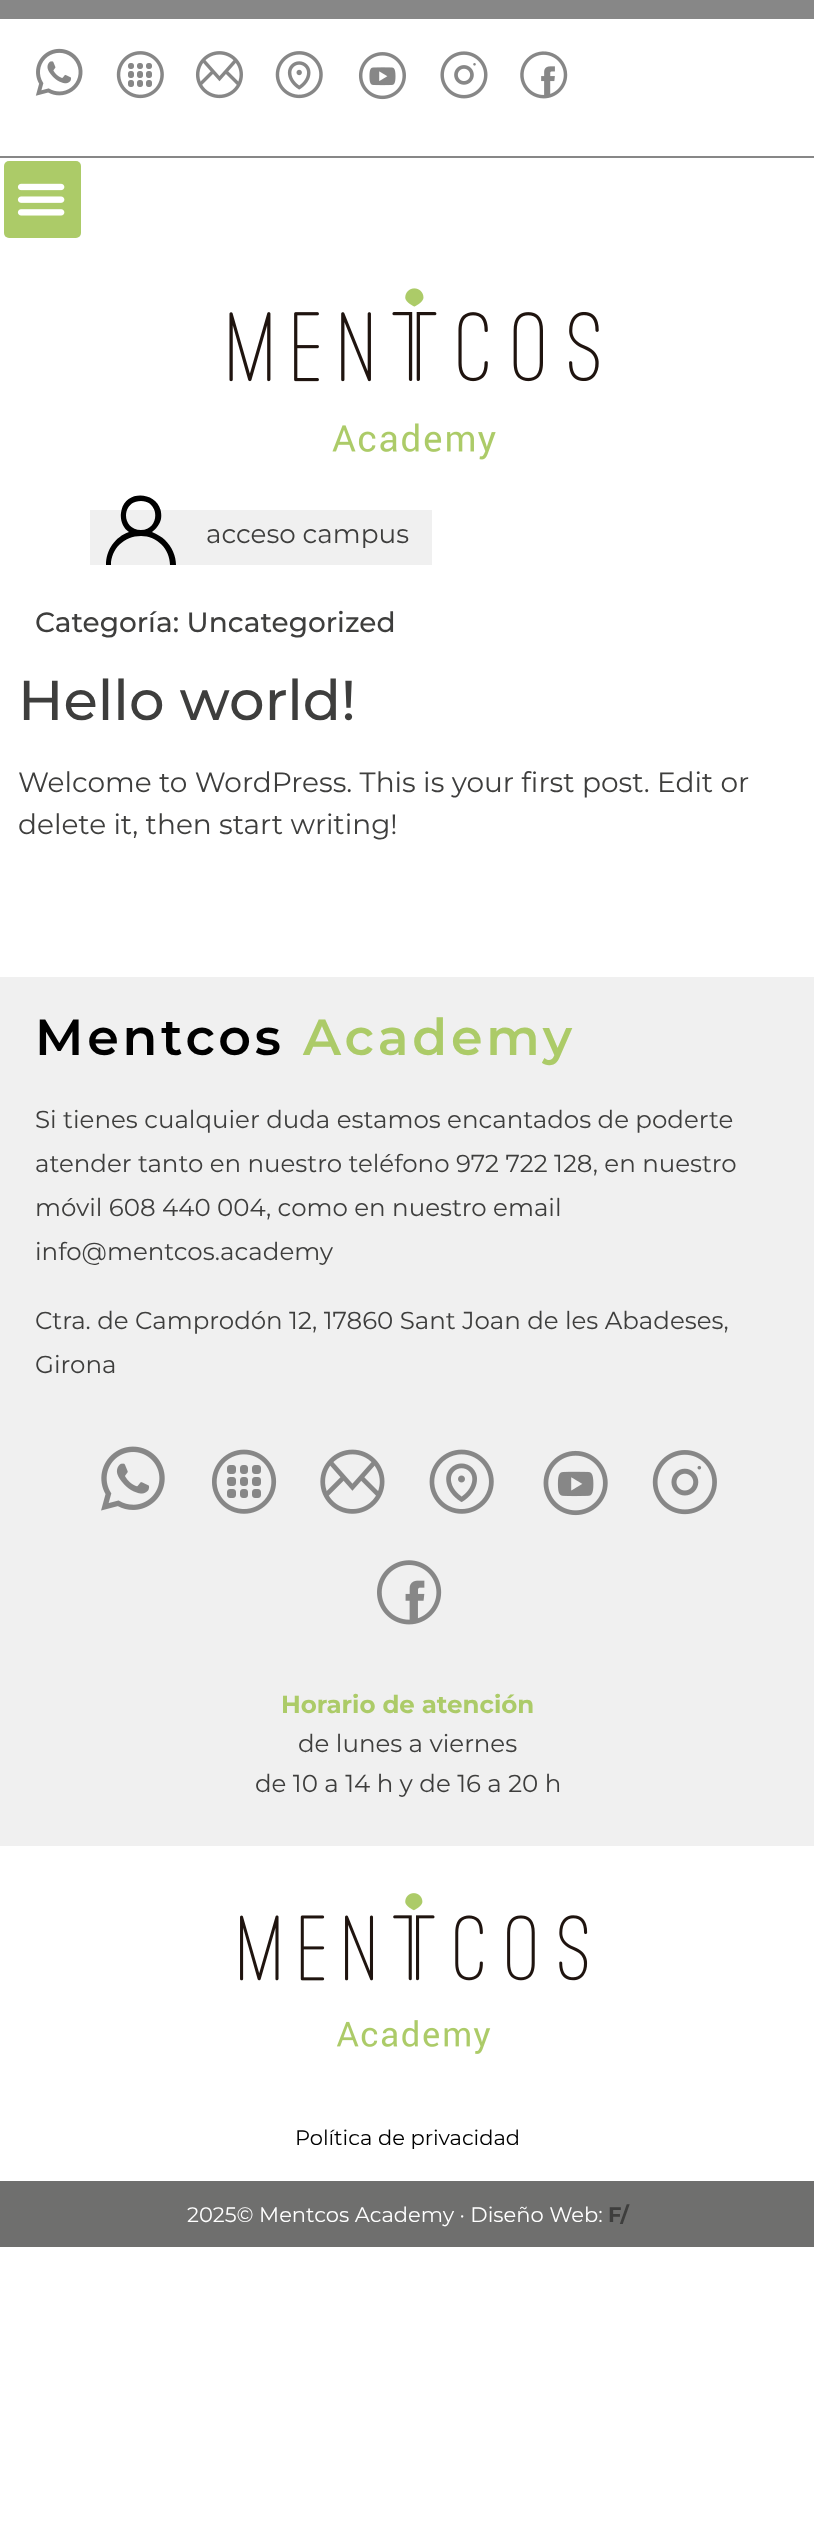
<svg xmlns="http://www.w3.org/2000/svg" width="814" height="2545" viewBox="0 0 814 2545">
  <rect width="100%" height="100%" fill="rgb(255,255,255)"/>
  <rect x="0" y="0" width="814" height="19" fill="rgb(135,135,135)"/>
  <rect x="0" y="156" width="814" height="2" fill="rgb(135,135,135)"/>
  <image x="35" y="48" width="48" height="48" href="pic1.png"/>
  <image x="116" y="51" width="48" height="48" href="pic2.png"/>
  <image x="195" y="51" width="48" height="48" href="pic3.png"/>
  <image x="275" y="51" width="48" height="48" href="pic4.png"/>
  <image x="358" y="52" width="48" height="48" href="pic5.png"/>
  <image x="440" y="51" width="48" height="48" href="pic6.png"/>
  <image x="520" y="51" width="48" height="48" href="pic7.png"/>
  <rect x="4" y="161" width="77" height="77" rx="5" fill="rgb(172,203,104)"/>
  <image x="17" y="183" width="48" height="33" href="pic8.png"/>
  <image x="229" y="288" width="370" height="172" href="pic9.png"/>
  <rect x="90" y="510" width="342" height="55" fill="rgb(240,240,240)"/>
  <path d="M165 540C162 537 157 534 152 532C156 529 160 524 161 519C165 492 124 486 121 513C120 520 123 528 129 532C115 537 106 550 106 565H111C111 549 124 536 141 536C157 536 170 549 170 565H176C176 556 172 547 165 540ZM141 530C121 530 121 501 141 501C160 501 160 530 141 530Z" fill="rgb(0,0,0)"/>
  <text x="206" y="543" font-family="Montserrat" font-size="26.25" fill="rgb(62,62,61)">acceso campus</text>
  <text x="35" y="632" font-family="Montserrat" font-size="28" font-weight="500" fill="rgb(62,62,61)">Categoría: Uncategorized</text>
  <text x="18" y="720" font-family="Montserrat" font-size="56" font-weight="500" fill="rgb(62,62,61)">Hello world!</text>
  <g font-family="Montserrat" font-size="28" fill="rgb(62,62,61)">
    <text>
      <tspan x="18" y="792">Welcome to WordPress. This is your first post. Edit or</tspan>
      <tspan x="18" y="834">delete it, then start writing!</tspan>
    </text>
  </g>
  <rect x="0" y="977" width="814" height="869" fill="rgb(240,240,240)"/>
  <text x="35" y="1055" font-family="Montserrat" font-size="50.75" font-weight="600" letter-spacing="3.75" fill="rgb(0,0,0)">Mentcos</text>
  <text x="303" y="1055" font-family="Montserrat" font-size="50.75" font-weight="600" letter-spacing="3.75" fill="rgb(172,203,104)">Academy</text>
  <g font-family="Montserrat" font-size="24.5" fill="rgb(62,62,61)">
    <text>
      <tspan x="35" y="1128">Si tienes cualquier duda estamos encantados de poderte</tspan>
      <tspan x="35" y="1172">atender tanto en nuestro teléfono 972 722 128, en nuestro</tspan>
      <tspan x="35" y="1216">móvil 608 440 004</tspan>
    </text>
    <text x="266" y="1216">, como en nuestro email</text>
    <text x="35" y="1260">info@mentcos.academy</text>
    <text>
      <tspan x="35" y="1329">Ctra. de Camprodón 12, 17860 Sant Joan de les Abadeses,</tspan>
      <tspan x="35" y="1373">Girona</tspan>
    </text>
  </g>
  <image x="101" y="1446" width="64" height="65" href="pic10.png"/>
  <image x="212" y="1449" width="65" height="65" href="pic11.png"/>
  <image x="320" y="1449" width="65" height="65" href="pic12.png"/>
  <image x="429" y="1449" width="65" height="65" href="pic13.png"/>
  <image x="543" y="1450" width="65" height="66" href="pic14.png"/>
  <image x="652" y="1450" width="65" height="65" href="pic15.png"/>
  <image x="377" y="1560" width="65" height="65" href="pic16.png"/>
  <text x="281" y="1713" font-family="Montserrat" font-size="24.5" font-weight="bold" fill="rgb(172,203,104)">Horario de atención</text>
  <g font-family="Montserrat" font-size="24.5" fill="rgb(62,62,61)">
    <text x="298" y="1752">de lunes a viernes</text>
    <text x="255" y="1792">de 10 a 14 h y de 16 a 20 h</text>
  </g>
  <image x="240" y="1893" width="348" height="161" href="pic17.png"/>
  <text x="295" y="2145" font-family="Montserrat" font-size="21" fill="rgb(0,0,0)">Política de privacidad</text>
  <rect x="0" y="2181" width="814" height="66" fill="rgb(111,111,110)"/>
  <text x="187" y="2222" font-family="Montserrat" font-size="21" fill="rgb(255,255,255)">2025© Mentcos Academy · Diseño Web:</text>
  <text x="608" y="2222" font-family="Montserrat" font-size="21" font-weight="bold" fill="rgb(62,62,61)">F/</text>
</svg>
